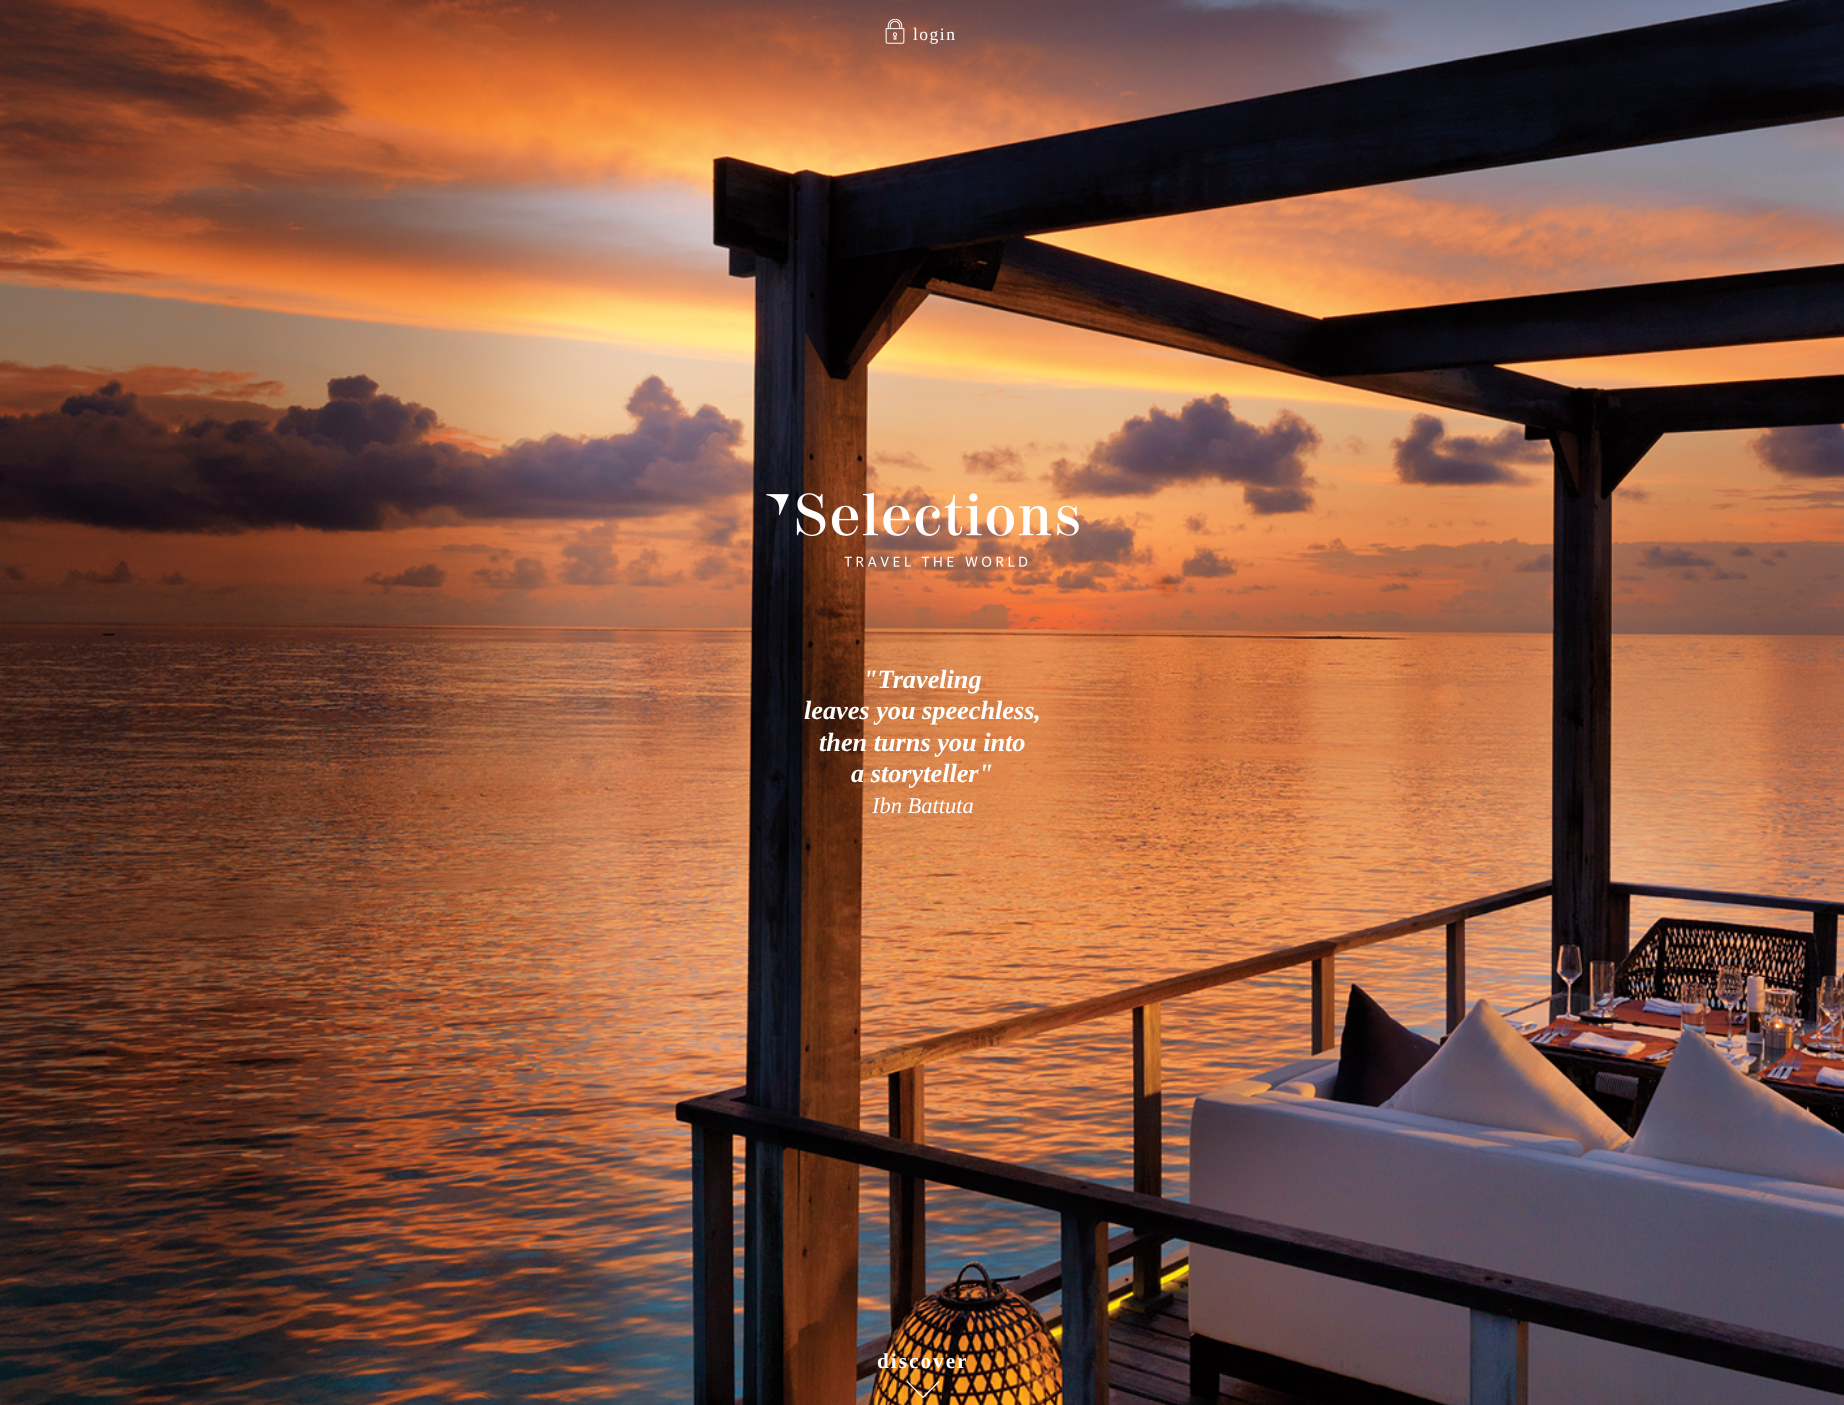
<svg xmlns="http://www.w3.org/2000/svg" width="1844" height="1405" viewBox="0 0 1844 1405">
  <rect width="100%" height="100%" fill="rgb(255,255,255)"/>
  <image x="0" y="0" width="1844" height="1405" href="pic1.png"/>
  <image x="885" y="19" width="20" height="25" href="pic2.png"/>
  <text x="913" y="40" font-family="Liberation Serif" font-size="17.5" letter-spacing="1.5" fill="rgb(255,255,255)">login</text>
  <image x="766" y="492" width="313" height="75" href="pic3.png"/>
  <g font-family="Liberation Serif" font-size="26.25" font-weight="bold" font-style="italic" fill="rgb(255,255,255)">
    <text x="863" y="688">"Traveling</text>
    <text x="804" y="719">leaves you speechless,</text>
    <text x="819" y="751">then turns you into</text>
    <text x="851" y="782">a storyteller"</text>
  </g>
  <text x="872" y="813" font-family="Liberation Serif" font-size="22.5" font-style="italic" fill="rgb(255,255,255)">Ibn Battuta</text>
  <text x="877" y="1368" font-family="Liberation Serif" font-size="21.25" font-weight="bold" letter-spacing="2" fill="rgb(255,255,255)">discover</text>
  <image x="906" y="1381" width="34" height="17" href="pic4.png"/>
</svg>
